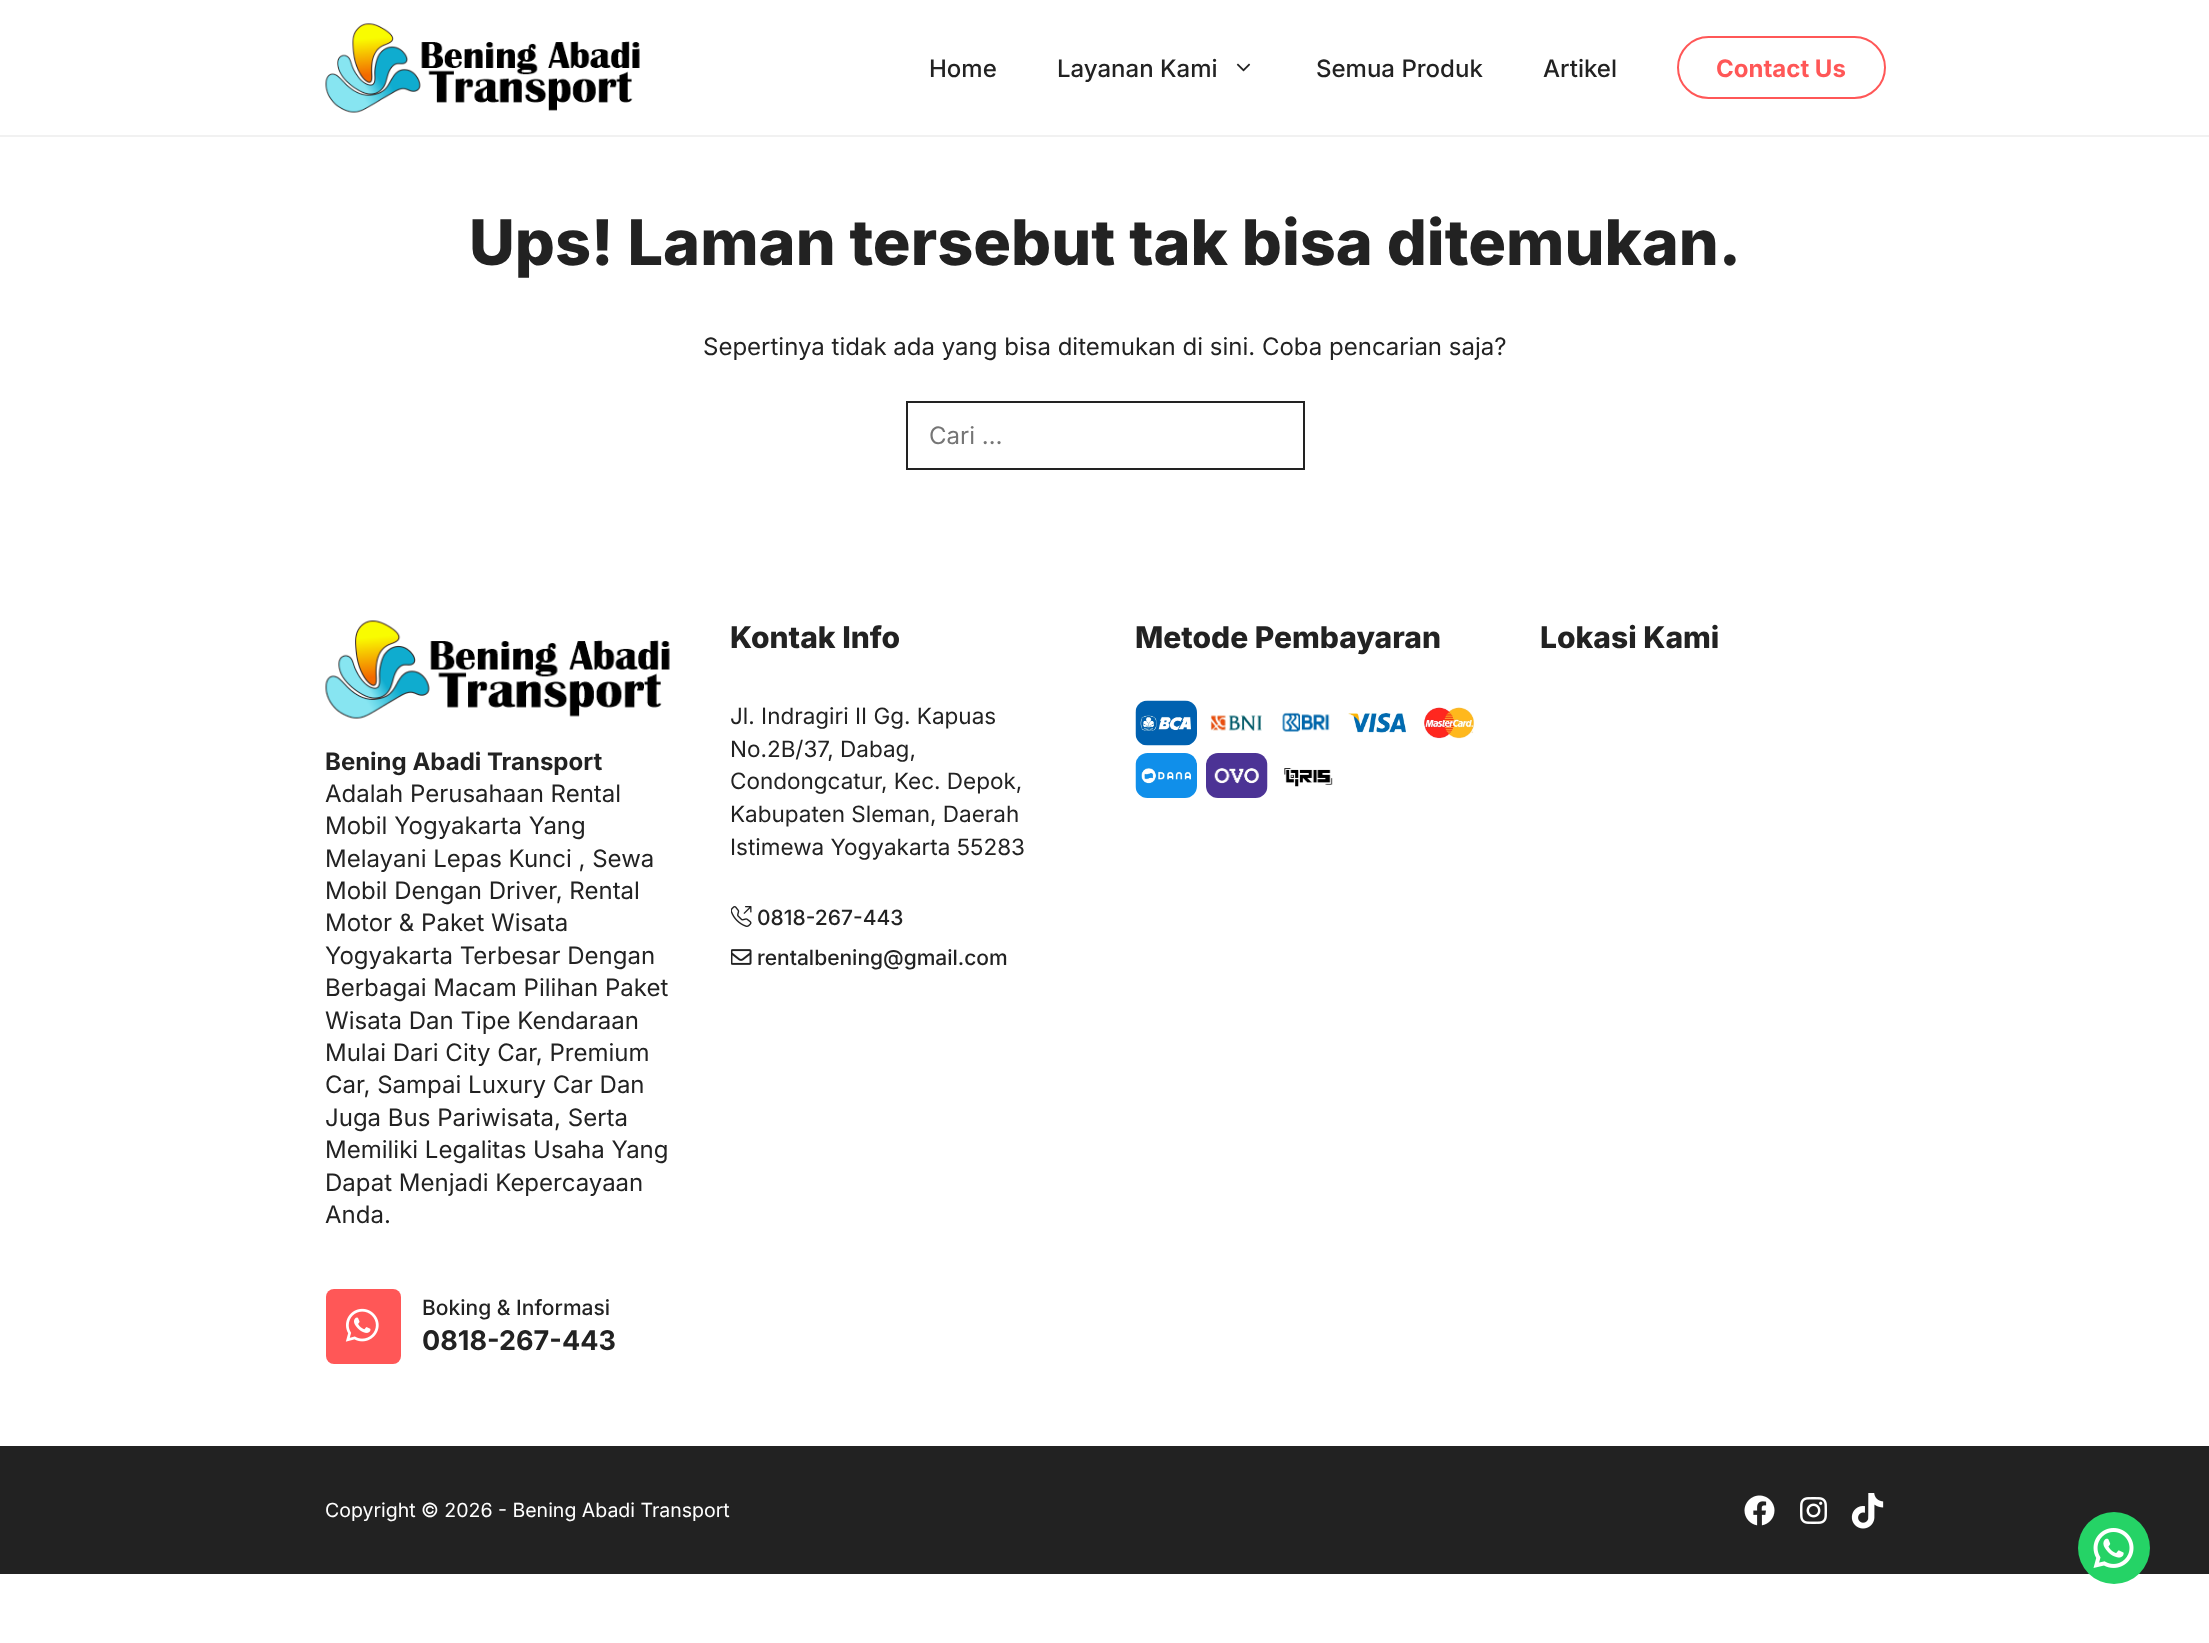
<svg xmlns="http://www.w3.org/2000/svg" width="2209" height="1643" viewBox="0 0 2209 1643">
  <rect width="100%" height="100%" fill="rgb(255,255,255)"/>
  <rect x="0" y="135" width="2209" height="2" fill="rgb(241,241,241)"/>
  <image x="325" y="23" width="315" height="90" href="pic1.png"/>
  <g font-family="Inter" font-size="24" font-weight="500" fill="rgb(34,34,34)">
    <text x="929" y="77">Home</text>
    <text x="1057" y="77">Layanan Kami</text>
  </g>
  <image x="1236" y="63" width="15" height="9" href="pic2.png"/>
  <g font-family="Inter" font-size="24" font-weight="500" fill="rgb(34,34,34)">
    <text x="1316" y="77">Semua Produk</text>
    <text x="1543" y="77">Artikel</text>
  </g>
  <rect x="1678" y="37" width="207" height="61" rx="30.5" fill="none" stroke="rgb(255,87,87)" stroke-width="2"/>
  <text x="1716" y="77" font-family="Inter" font-size="24" font-weight="bold" fill="rgb(255,87,87)">Contact Us</text>
  <text x="469" y="265" font-family="Inter" font-size="63" font-weight="800" fill="rgb(34,34,34)">Ups! Laman tersebut tak bisa ditemukan.</text>
  <text x="703" y="355" font-family="Inter" font-size="24" fill="rgb(34,34,34)">Sepertinya tidak ada yang bisa ditemukan di sini. Coba pencarian saja?</text>
  <rect x="907" y="402" width="397" height="67" fill="none" stroke="rgb(34,34,34)" stroke-width="2"/>
  <text x="929" y="444" font-family="Inter" font-size="24" fill="rgb(117,117,117)">Cari …</text>
  <text x="730" y="648" font-family="Inter" font-size="30" font-weight="800" fill="rgb(34,34,34)">Kontak Info</text>
  <g font-family="Inter" font-size="22.5" fill="rgb(34,34,34)">
    <text>
      <tspan x="730" y="724">Jl. Indragiri II Gg. Kapuas</tspan>
      <tspan x="730" y="757">No.2B/37, Dabag,</tspan>
      <tspan x="730" y="789">Condongcatur, Kec. Depok,</tspan>
      <tspan x="730" y="822">Kabupaten Sleman, Daerah</tspan>
      <tspan x="730" y="855">Istimewa Yogyakarta 55283</tspan>
    </text>
  </g>
  <image x="731" y="906" width="21" height="21" href="pic3.png"/>
  <text x="757" y="925" font-family="Inter" font-size="21" font-weight="500" fill="rgb(34,34,34)">0818-267-443</text>
  <image x="731" y="949" width="21" height="16" href="pic4.png"/>
  <text x="757" y="965" font-family="Inter" font-size="21" font-weight="500" fill="rgb(34,34,34)">rentalbening@gmail.com</text>
  <text x="1135" y="648" font-family="Inter" font-size="30" font-weight="800" fill="rgb(34,34,34)">Metode Pembayaran</text>
  <image x="1135" y="700" width="62" height="46" href="pic5.png"/>
  <image x="1210" y="715" width="52" height="16" href="pic6.png"/>
  <image x="1282" y="712" width="48" height="20" href="pic7.png"/>
  <image x="1348" y="713" width="58" height="20" href="pic8.png"/>
  <image x="1424" y="707" width="51" height="32" href="pic9.png"/>
  <image x="1135" y="753" width="62" height="45" href="pic10.png"/>
  <image x="1206" y="753" width="62" height="45" href="pic11.png"/>
  <image x="1284" y="768" width="49" height="19" href="pic12.png"/>
  <text x="1540" y="648" font-family="Inter" font-size="30" font-weight="800" fill="rgb(34,34,34)">Lokasi Kami</text>
  <image x="325" y="620" width="345" height="99" href="pic13.png"/>
  <text x="325" y="770" font-family="Inter" font-size="24" font-weight="bold" fill="rgb(34,34,34)">Bening Abadi Transport</text>
  <g font-family="Inter" font-size="24" fill="rgb(34,34,34)">
    <text>
      <tspan x="325" y="802">Adalah Perusahaan Rental</tspan>
      <tspan x="325" y="834">Mobil Yogyakarta Yang</tspan>
      <tspan x="325" y="867">Melayani Lepas Kunci , Sewa</tspan>
      <tspan x="325" y="899">Mobil Dengan Driver, Rental</tspan>
      <tspan x="325" y="931">Motor &amp; Paket Wisata</tspan>
      <tspan x="325" y="964">Yogyakarta Terbesar Dengan</tspan>
      <tspan x="325" y="996">Berbagai Macam Pilihan Paket</tspan>
      <tspan x="325" y="1029">Wisata Dan Tipe Kendaraan</tspan>
      <tspan x="325" y="1061">Mulai Dari City Car, Premium</tspan>
      <tspan x="325" y="1093">Car, Sampai Luxury Car Dan</tspan>
      <tspan x="325" y="1126">Juga Bus Pariwisata, Serta</tspan>
      <tspan x="325" y="1158">Memiliki Legalitas Usaha Yang</tspan>
      <tspan x="325" y="1191">Dapat Menjadi Kepercayaan</tspan>
      <tspan x="325" y="1223">Anda.</tspan>
    </text>
  </g>
  <rect x="326" y="1289" width="75" height="75" rx="8" fill="rgb(255,87,87)"/>
  <image x="345" y="1308" width="34" height="34" href="pic14.png"/>
  <text x="422" y="1315" font-family="Inter" font-size="21" font-weight="500" fill="rgb(34,34,34)">Boking &amp; Informasi</text>
  <text x="422" y="1350" font-family="Inter" font-size="27" font-weight="bold" fill="rgb(34,34,34)">0818-267-443</text>
  <rect x="0" y="1446" width="2209" height="128" fill="rgb(34,34,34)"/>
  <text x="325" y="1517" font-family="Inter" font-size="19.5" fill="rgb(255,255,255)">Copyright © 2026 - Bening Abadi Transport</text>
  <image x="1744" y="1495" width="31" height="31" href="pic15.png"/>
  <image x="1800" y="1497" width="27" height="27" href="pic16.png"/>
  <image x="1851" y="1493" width="33" height="36" href="pic17.png"/>
  <circle cx="2114" cy="1548" r="36" fill="rgb(37,211,102)"/>
  <image x="2093" y="1528" width="41" height="40" href="pic18.png"/>
</svg>
